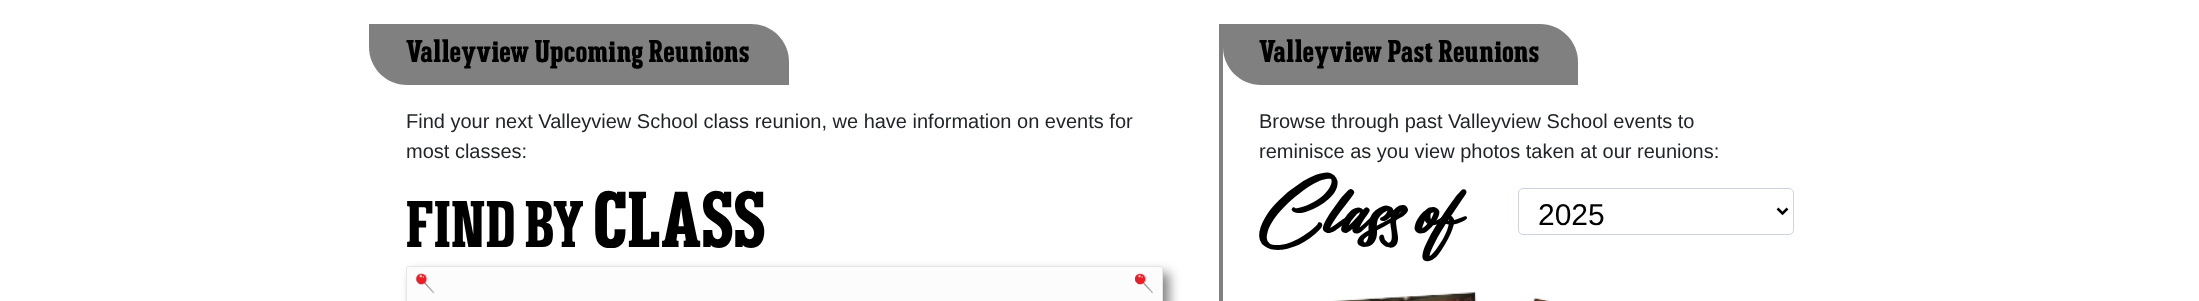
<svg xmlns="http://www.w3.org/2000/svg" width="2199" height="301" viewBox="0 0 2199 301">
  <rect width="100%" height="100%" fill="rgb(255,255,255)"/>
  <rect x="1219" y="24" width="4" height="277" fill="rgb(128,128,128)"/>
  <path d="M369 24H751C772 24 789 41 789 62V85H407C386 85 369 68 369 47Z" fill="rgb(128,128,128)"/>
  <text x="406" y="62" font-family="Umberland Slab" font-size="30" letter-spacing="0.6" fill="rgb(0,0,0)">Valleyview Upcoming Reunions</text>
  <g font-family="Liberation Sans" font-size="20" fill="rgb(33,37,41)">
    <text>
      <tspan x="406" y="128">Find your next Valleyview School class reunion, we have information on events for</tspan>
      <tspan x="406" y="158">most classes:</tspan>
    </text>
  </g>
  <text x="406" y="247" font-family="Umberland Slab" font-size="62.5" letter-spacing="0.6" fill="rgb(0,0,0)">FIND BY</text>
  <text x="594" y="247" font-family="Umberland Slab" font-size="75" letter-spacing="0.6" fill="rgb(0,0,0)">CLASS</text>
  <rect x="413" y="273" width="756" height="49" rx="2.5" fill="rgba(0,0,0,0.5)" filter="blur(6px)"/>
  <rect x="406.5" y="266.5" width="756" height="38" rx="2" fill="rgb(252,252,252)" stroke="rgb(231,229,227)"/>
  <image x="416" y="273" width="19" height="21" href="pic1.png"/>
  <image x="1135" y="273" width="18" height="21" href="pic2.png"/>
  <path d="M1223 24H1540C1561 24 1578 41 1578 62V85H1261C1240 85 1223 68 1223 47Z" fill="rgb(128,128,128)"/>
  <text x="1259" y="62" font-family="Umberland Slab" font-size="30" letter-spacing="0.6" fill="rgb(0,0,0)">Valleyview Past Reunions</text>
  <g font-family="Liberation Sans" font-size="20" fill="rgb(33,37,41)">
    <text>
      <tspan x="1259" y="128">Browse through past Valleyview School events to</tspan>
      <tspan x="1259" y="158">reminisce as you view photos taken at our reunions:</tspan>
    </text>
  </g>
  <text x="1259" y="233" font-family="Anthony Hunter" font-size="75" font-weight="bold" font-style="italic" fill="rgb(0,0,0)">Class of</text>
  <rect x="1518.5" y="188.5" width="275" height="46" rx="4.5" fill="none" stroke="rgb(206,212,218)"/>
  <path d="M1777.5 208.5L1782.5 213.5L1787.5 208.5" fill="none" stroke="rgb(0,0,0)" stroke-width="2.5"/>
  <text x="1538" y="225" font-family="Liberation Sans" font-size="30" fill="rgb(0,0,0)">2025</text>
  <image x="1333" y="292" width="217" height="9" href="pic3.png"/>
</svg>
